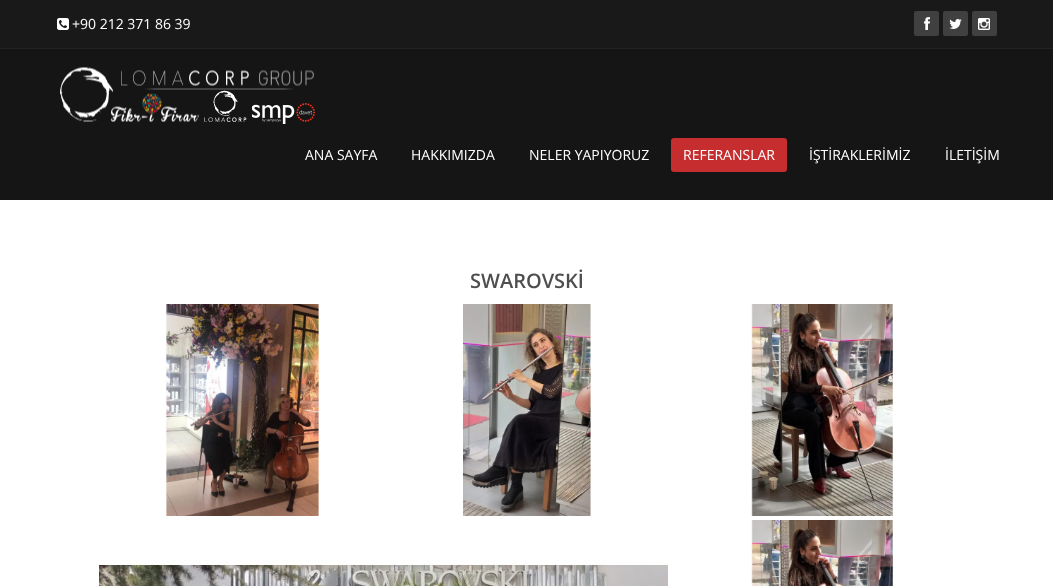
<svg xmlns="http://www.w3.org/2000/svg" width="1053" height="586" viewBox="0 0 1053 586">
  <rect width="100%" height="100%" fill="rgb(255,255,255)"/>
  <rect x="0" y="0" width="1053" height="48" fill="rgb(25,25,25)"/>
  <rect x="0" y="48" width="1053" height="1" fill="rgb(34,34,34)"/>
  <image x="57" y="18" width="12" height="12" href="pic1.png"/>
  <text x="72" y="29" font-family="Open Sans" font-size="14" fill="rgb(255,255,255)">+90 212 371 86 39</text>
  <rect x="914" y="11" width="25" height="25" rx="2" fill="rgb(64,64,64)"/>
  <image x="924" y="17" width="6" height="13" href="pic2.png"/>
  <rect x="943" y="11" width="25" height="25" rx="2" fill="rgb(64,64,64)"/>
  <image x="949" y="19" width="13" height="10" href="pic3.png"/>
  <rect x="972" y="11" width="25" height="25" rx="2" fill="rgb(64,64,64)"/>
  <image x="978" y="18" width="12" height="12" href="pic4.png"/>
  <rect x="0" y="49" width="1053" height="151" fill="rgb(21,21,21)"/>
  <image x="60" y="67" width="255" height="57" href="pic5.png"/>
  <g font-family="Open Sans" font-size="14" fill="rgb(255,255,255)">
    <text x="305" y="160">ANA SAYFA</text>
    <text x="411" y="160">HAKKIMIZDA</text>
    <text x="529" y="160">NELER YAPIYORUZ</text>
  </g>
  <rect x="671" y="138" width="116" height="34" rx="3" fill="rgb(197,45,47)"/>
  <g font-family="Open Sans" font-size="14" fill="rgb(255,255,255)">
    <text x="683" y="160">REFERANSLAR</text>
    <text x="809" y="160">İŞTİRAKLERİMİZ</text>
    <text x="945" y="160">İLETİŞİM</text>
  </g>
  <text x="470" y="288" font-family="Open Sans" font-size="20" font-weight="600" fill="rgb(78,78,78)">SWAROVSKİ</text>
  <image x="165" y="304" width="154" height="212" href="pic6.png"/>
  <image x="461" y="304" width="130" height="212" href="pic7.png"/>
  <image x="751" y="304" width="142" height="212" href="pic8.png"/>
  <image x="99" y="560" width="569" height="26" href="pic9.png"/>
  <image x="751" y="520" width="142" height="66" href="pic10.png"/>
</svg>
